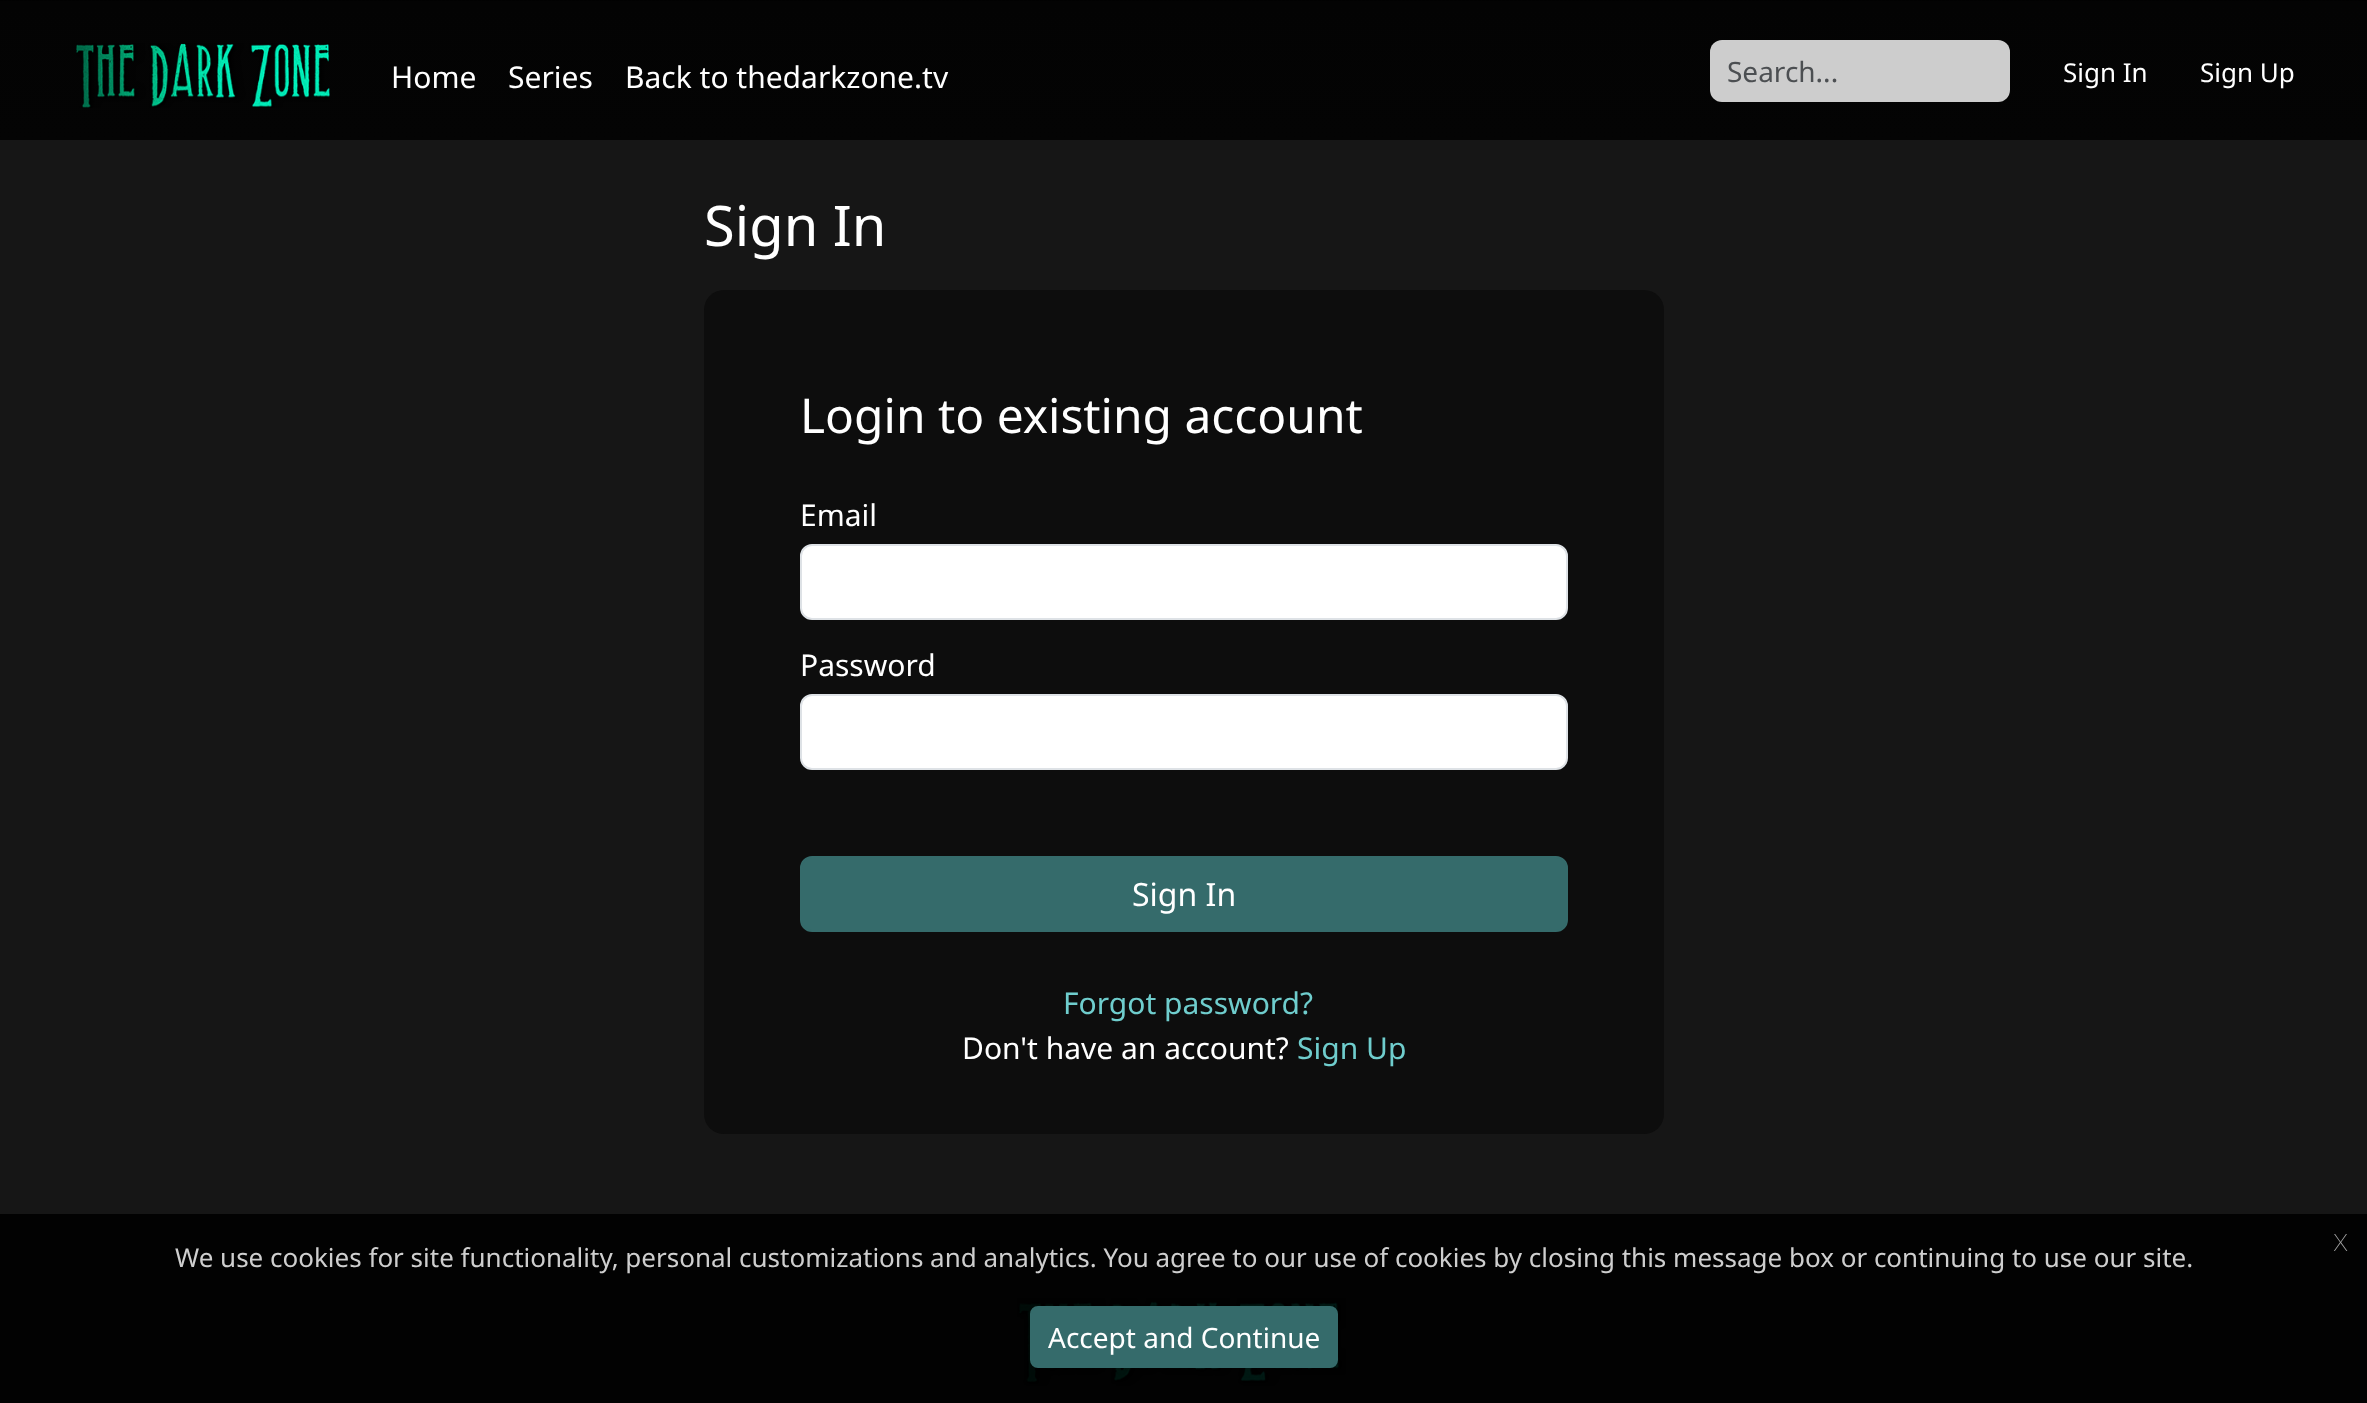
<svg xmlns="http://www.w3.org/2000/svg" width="2367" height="1403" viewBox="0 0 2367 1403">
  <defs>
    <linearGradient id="g1" gradientUnits="userSpaceOnUse" x1="1184" y1="0" x2="1184" y2="140"><stop offset="0" stop-color="rgb(0,0,0)"/><stop offset="0.01" stop-color="rgb(3,3,3)"/><stop offset="1" stop-color="rgb(4,4,4)"/></linearGradient>
  </defs>
  <rect width="100%" height="100%" fill="rgb(22,22,22)"/>
  <rect x="0" y="1214" width="2367" height="189" fill="rgb(2,2,2)"/>
  <rect x="0" y="0" width="2367" height="140" fill="url(#g1)"/>
  <image x="76" y="43" width="254" height="65" href="pic1.png"/>
  <g font-family="Noto Sans" font-size="30" fill="rgb(255,255,255)">
    <text x="391" y="88">Home</text>
    <text x="508" y="88">Series</text>
    <text x="625" y="88">Back to thedarkzone.tv</text>
  </g>
  <rect x="1710" y="40" width="300" height="62" rx="12" fill="rgb(205,205,205)"/>
  <text x="1727" y="82" font-family="Noto Sans" font-size="28" fill="rgb(76,79,82)">Search...</text>
  <g font-family="Noto Sans" font-size="26" fill="rgb(255,255,255)">
    <text x="2063" y="82">Sign In</text>
    <text x="2200" y="82">Sign Up</text>
  </g>
  <text x="704" y="246" font-family="Noto Sans" font-size="56" fill="rgb(255,255,255)">Sign In</text>
  <rect x="704" y="290" width="960" height="844" rx="20" fill="rgb(13,13,13)"/>
  <text x="800" y="433" font-family="Noto Sans" font-size="47.9" fill="rgb(255,255,255)">Login to existing account</text>
  <text x="800" y="526" font-family="Noto Sans" font-size="30" fill="rgb(255,255,255)">Email</text>
  <rect x="801" y="545" width="766" height="74" rx="11" fill="rgb(255,255,255)" stroke="rgb(222,226,230)" stroke-width="2"/>
  <text x="800" y="676" font-family="Noto Sans" font-size="30" fill="rgb(255,255,255)">Password</text>
  <rect x="801" y="695" width="766" height="74" rx="11" fill="rgb(255,255,255)" stroke="rgb(222,226,230)" stroke-width="2"/>
  <rect x="801" y="857" width="766" height="74" rx="11" fill="rgb(53,107,107)" stroke="rgb(53,107,107)" stroke-width="2"/>
  <text x="1132" y="906" font-family="Noto Sans" font-size="32" fill="rgb(255,255,255)">Sign In</text>
  <text x="1063" y="1014" font-family="Noto Sans" font-size="30" fill="rgb(111,205,205)">Forgot password?</text>
  <text x="962" y="1059" font-family="Noto Sans" font-size="30" fill="rgb(255,255,255)">Don't have an account?</text>
  <text x="1297" y="1059" font-family="Noto Sans" font-size="30" fill="rgb(111,205,205)">Sign Up</text>
  <image x="1017" y="1298" width="329" height="88" href="pic2.png"/>
  <text x="2333" y="1251" font-family="Noto Sans" font-size="32" font-weight="100" fill="rgb(162,162,162)">x</text>
  <text x="175" y="1267" font-family="Noto Sans" font-size="26" fill="rgb(206,206,206)">We use cookies for site functionality, personal customizations and analytics. You agree to our use of cookies by closing this message box or continuing to use our site.</text>
  <rect x="1031" y="1307" width="306" height="60" rx="7" fill="rgb(53,107,107)" stroke="rgb(53,107,107)" stroke-width="2"/>
  <text x="1048" y="1348" font-family="Noto Sans" font-size="28" fill="rgb(255,255,255)">Accept and Continue</text>
</svg>
